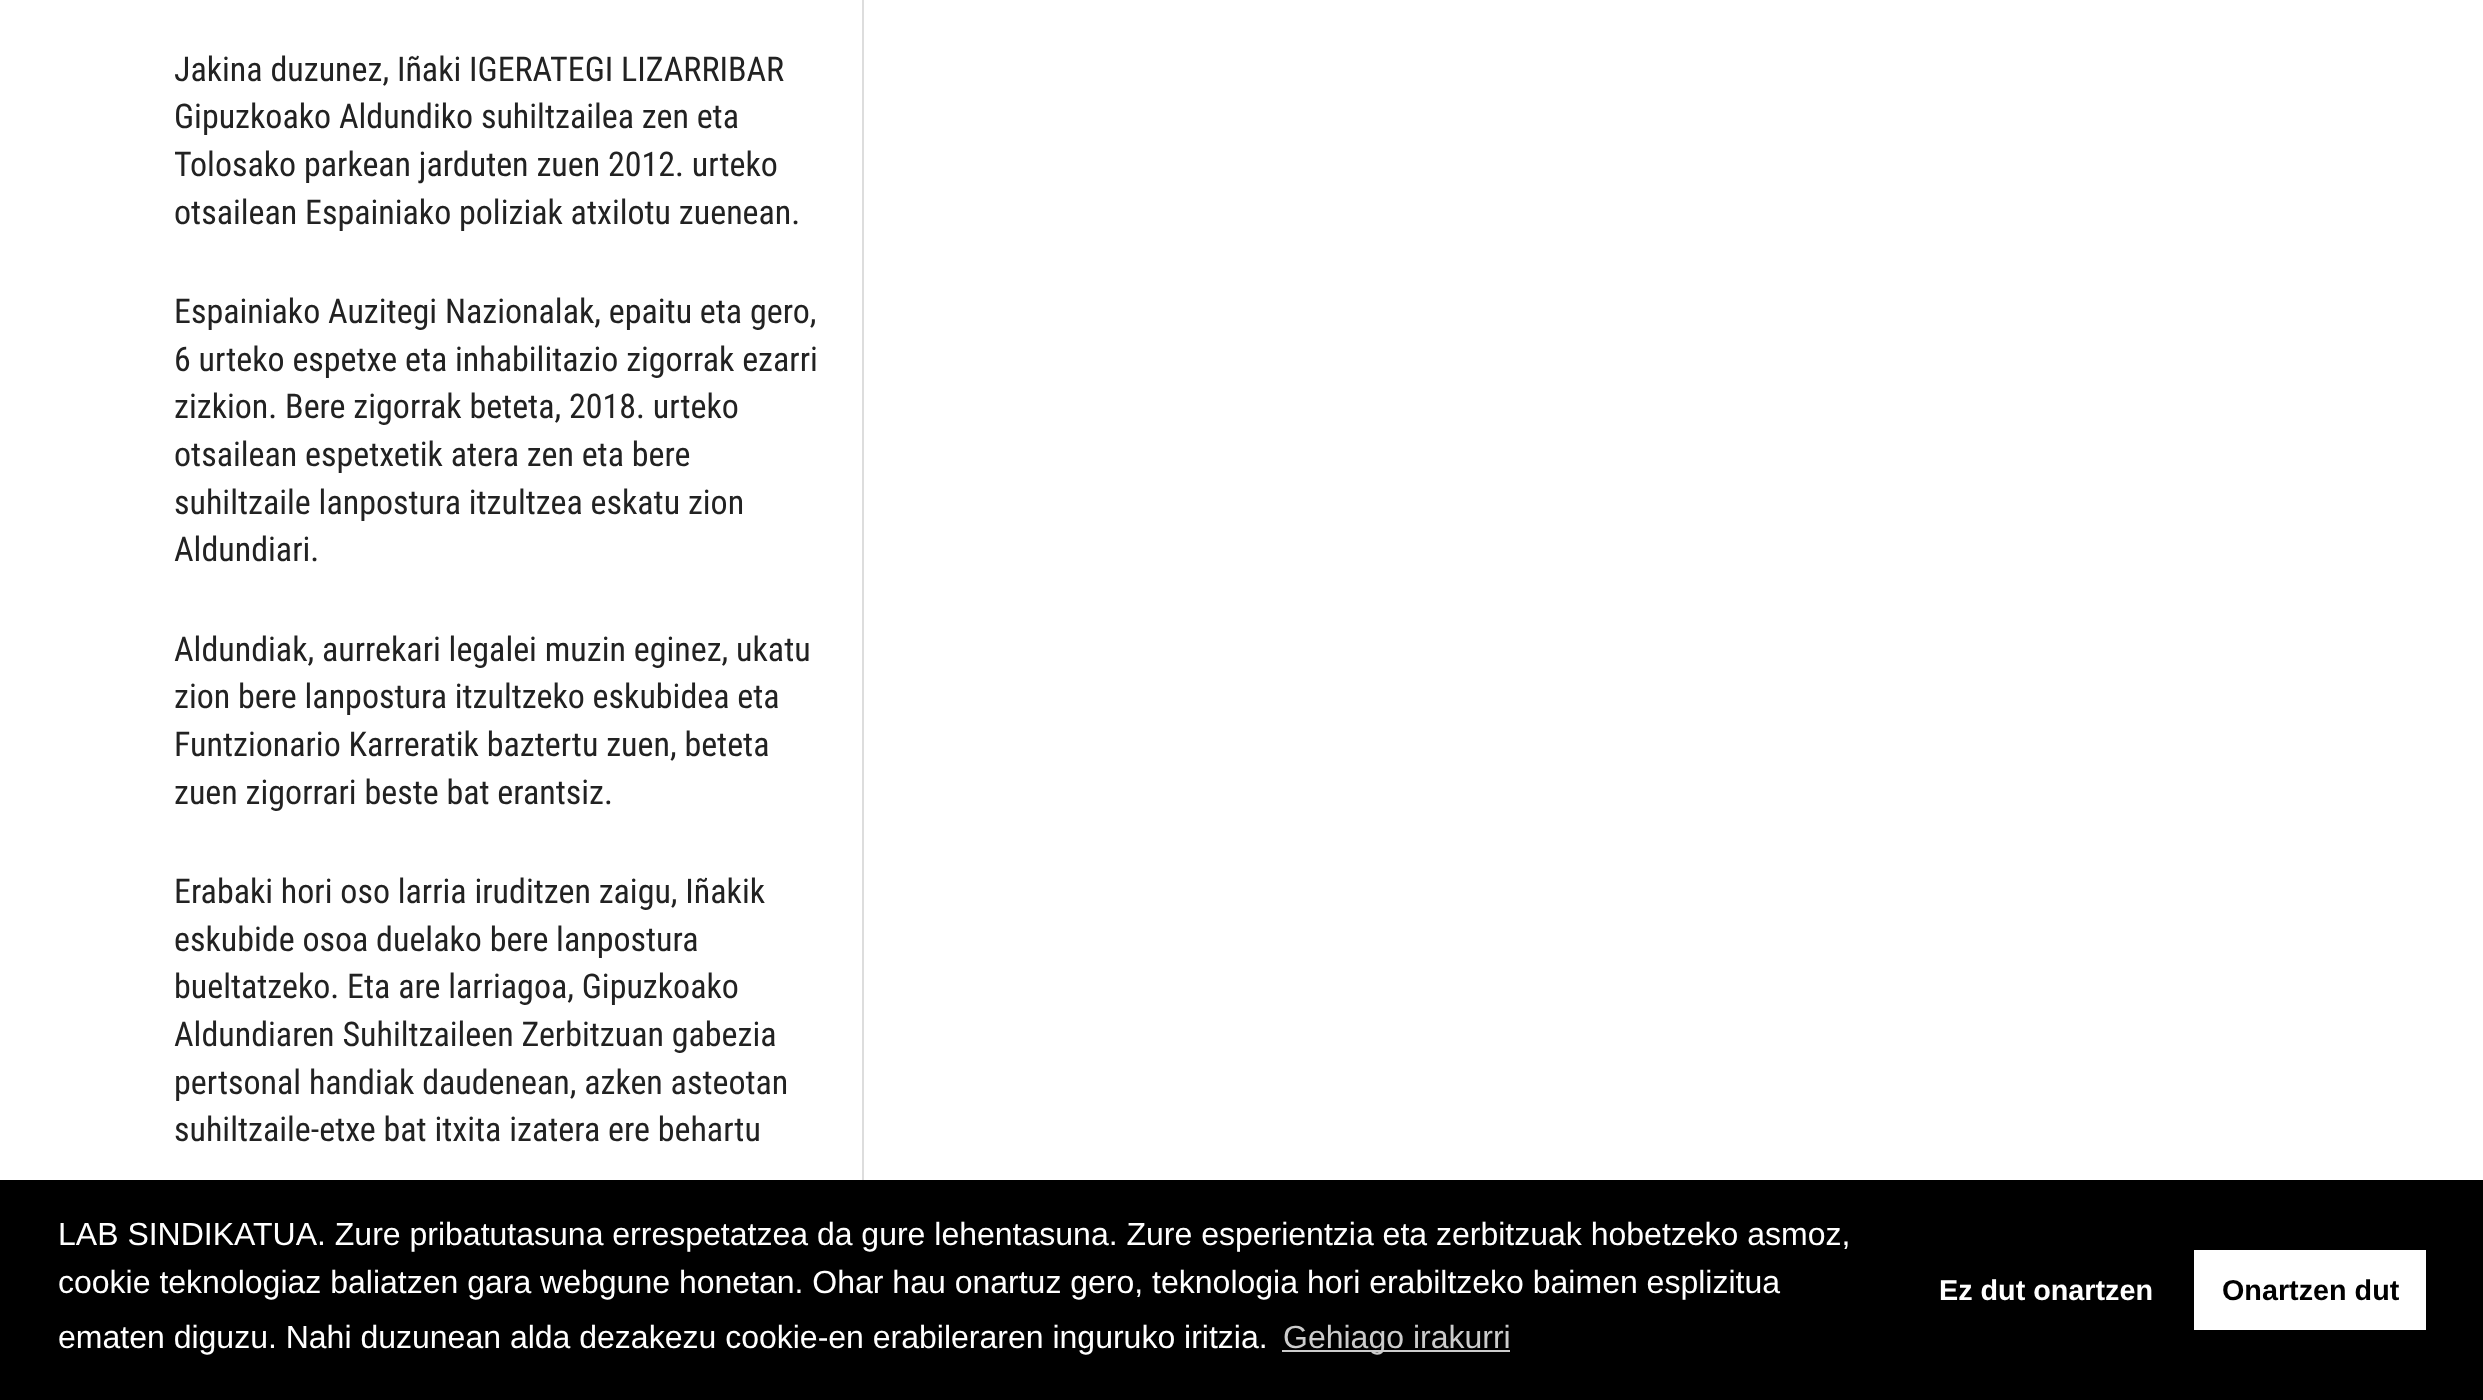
<svg xmlns="http://www.w3.org/2000/svg" width="2483" height="1400" viewBox="0 0 2483 1400">
  <rect width="100%" height="100%" fill="rgb(255,255,255)"/>
  <rect x="862" y="0" width="2" height="1180" fill="rgb(221,221,221)"/>
  <g font-family="Roboto Condensed" font-size="34" fill="rgb(34,34,34)">
    <text>
      <tspan x="174" y="81">Jakina duzunez, Iñaki IGERATEGI LIZARRIBAR</tspan>
      <tspan x="174" y="128">Gipuzkoako Aldundiko suhiltzailea zen eta</tspan>
      <tspan x="174" y="176">Tolosako parkean jarduten zuen 2012. urteko</tspan>
      <tspan x="174" y="224">otsailean Espainiako poliziak atxilotu zuenean.</tspan>
    </text>
    <text>
      <tspan x="174" y="323">Espainiako Auzitegi Nazionalak, epaitu eta gero,</tspan>
      <tspan x="174" y="371">6 urteko espetxe eta inhabilitazio zigorrak ezarri</tspan>
      <tspan x="174" y="418">zizkion. Bere zigorrak beteta, 2018. urteko</tspan>
      <tspan x="174" y="466">otsailean espetxetik atera zen eta bere</tspan>
      <tspan x="174" y="514">suhiltzaile lanpostura itzultzea eskatu zion</tspan>
      <tspan x="174" y="561">Aldundiari.</tspan>
    </text>
    <text>
      <tspan x="174" y="661">Aldundiak, aurrekari legalei muzin eginez, ukatu</tspan>
      <tspan x="174" y="708">zion bere lanpostura itzultzeko eskubidea eta</tspan>
      <tspan x="174" y="756">Funtzionario Karreratik baztertu zuen, beteta</tspan>
      <tspan x="174" y="804">zuen zigorrari beste bat erantsiz.</tspan>
    </text>
    <text>
      <tspan x="174" y="903">Erabaki hori oso larria iruditzen zaigu, Iñakik</tspan>
      <tspan x="174" y="951">eskubide osoa duelako bere lanpostura</tspan>
      <tspan x="174" y="998">bueltatzeko. Eta are larriagoa, Gipuzkoako</tspan>
      <tspan x="174" y="1046">Aldundiaren Suhiltzaileen Zerbitzuan gabezia</tspan>
      <tspan x="174" y="1094">pertsonal handiak daudenean, azken asteotan</tspan>
      <tspan x="174" y="1141">suhiltzaile-etxe bat itxita izatera ere behartu</tspan>
    </text>
  </g>
  <rect x="0" y="1180" width="2483" height="220" fill="rgb(0,0,0)"/>
  <g font-family="Liberation Sans" font-size="32" fill="rgb(255,255,255)">
    <text>
      <tspan x="58" y="1245">LAB SINDIKATUA. Zure pribatutasuna errespetatzea da gure lehentasuna. Zure esperientzia eta zerbitzuak hobetzeko asmoz,</tspan>
      <tspan x="58" y="1293">cookie teknologiaz baliatzen gara webgune honetan. Ohar hau onartuz gero, teknologia hori erabiltzeko baimen esplizitua</tspan>
      <tspan x="58" y="1348">ematen diguzu. Nahi duzunean alda dezakezu cookie-en erabileraren inguruko iritzia.</tspan>
    </text>
  </g>
  <rect x="1282" y="1350" width="228" height="2" fill="rgb(204,204,204)"/>
  <text x="1283" y="1348" font-family="Liberation Sans" font-size="32" fill="rgb(204,204,204)">Gehiago irakurri</text>
  <text x="1939" y="1300" font-family="Liberation Sans" font-size="28.75" font-weight="bold" fill="rgb(255,255,255)">Ez dut onartzen</text>
  <rect x="2194" y="1250" width="232" height="80" fill="rgb(255,255,255)"/>
  <text x="2222" y="1300" font-family="Liberation Sans" font-size="28.75" font-weight="bold" fill="rgb(0,0,0)">Onartzen dut</text>
</svg>
